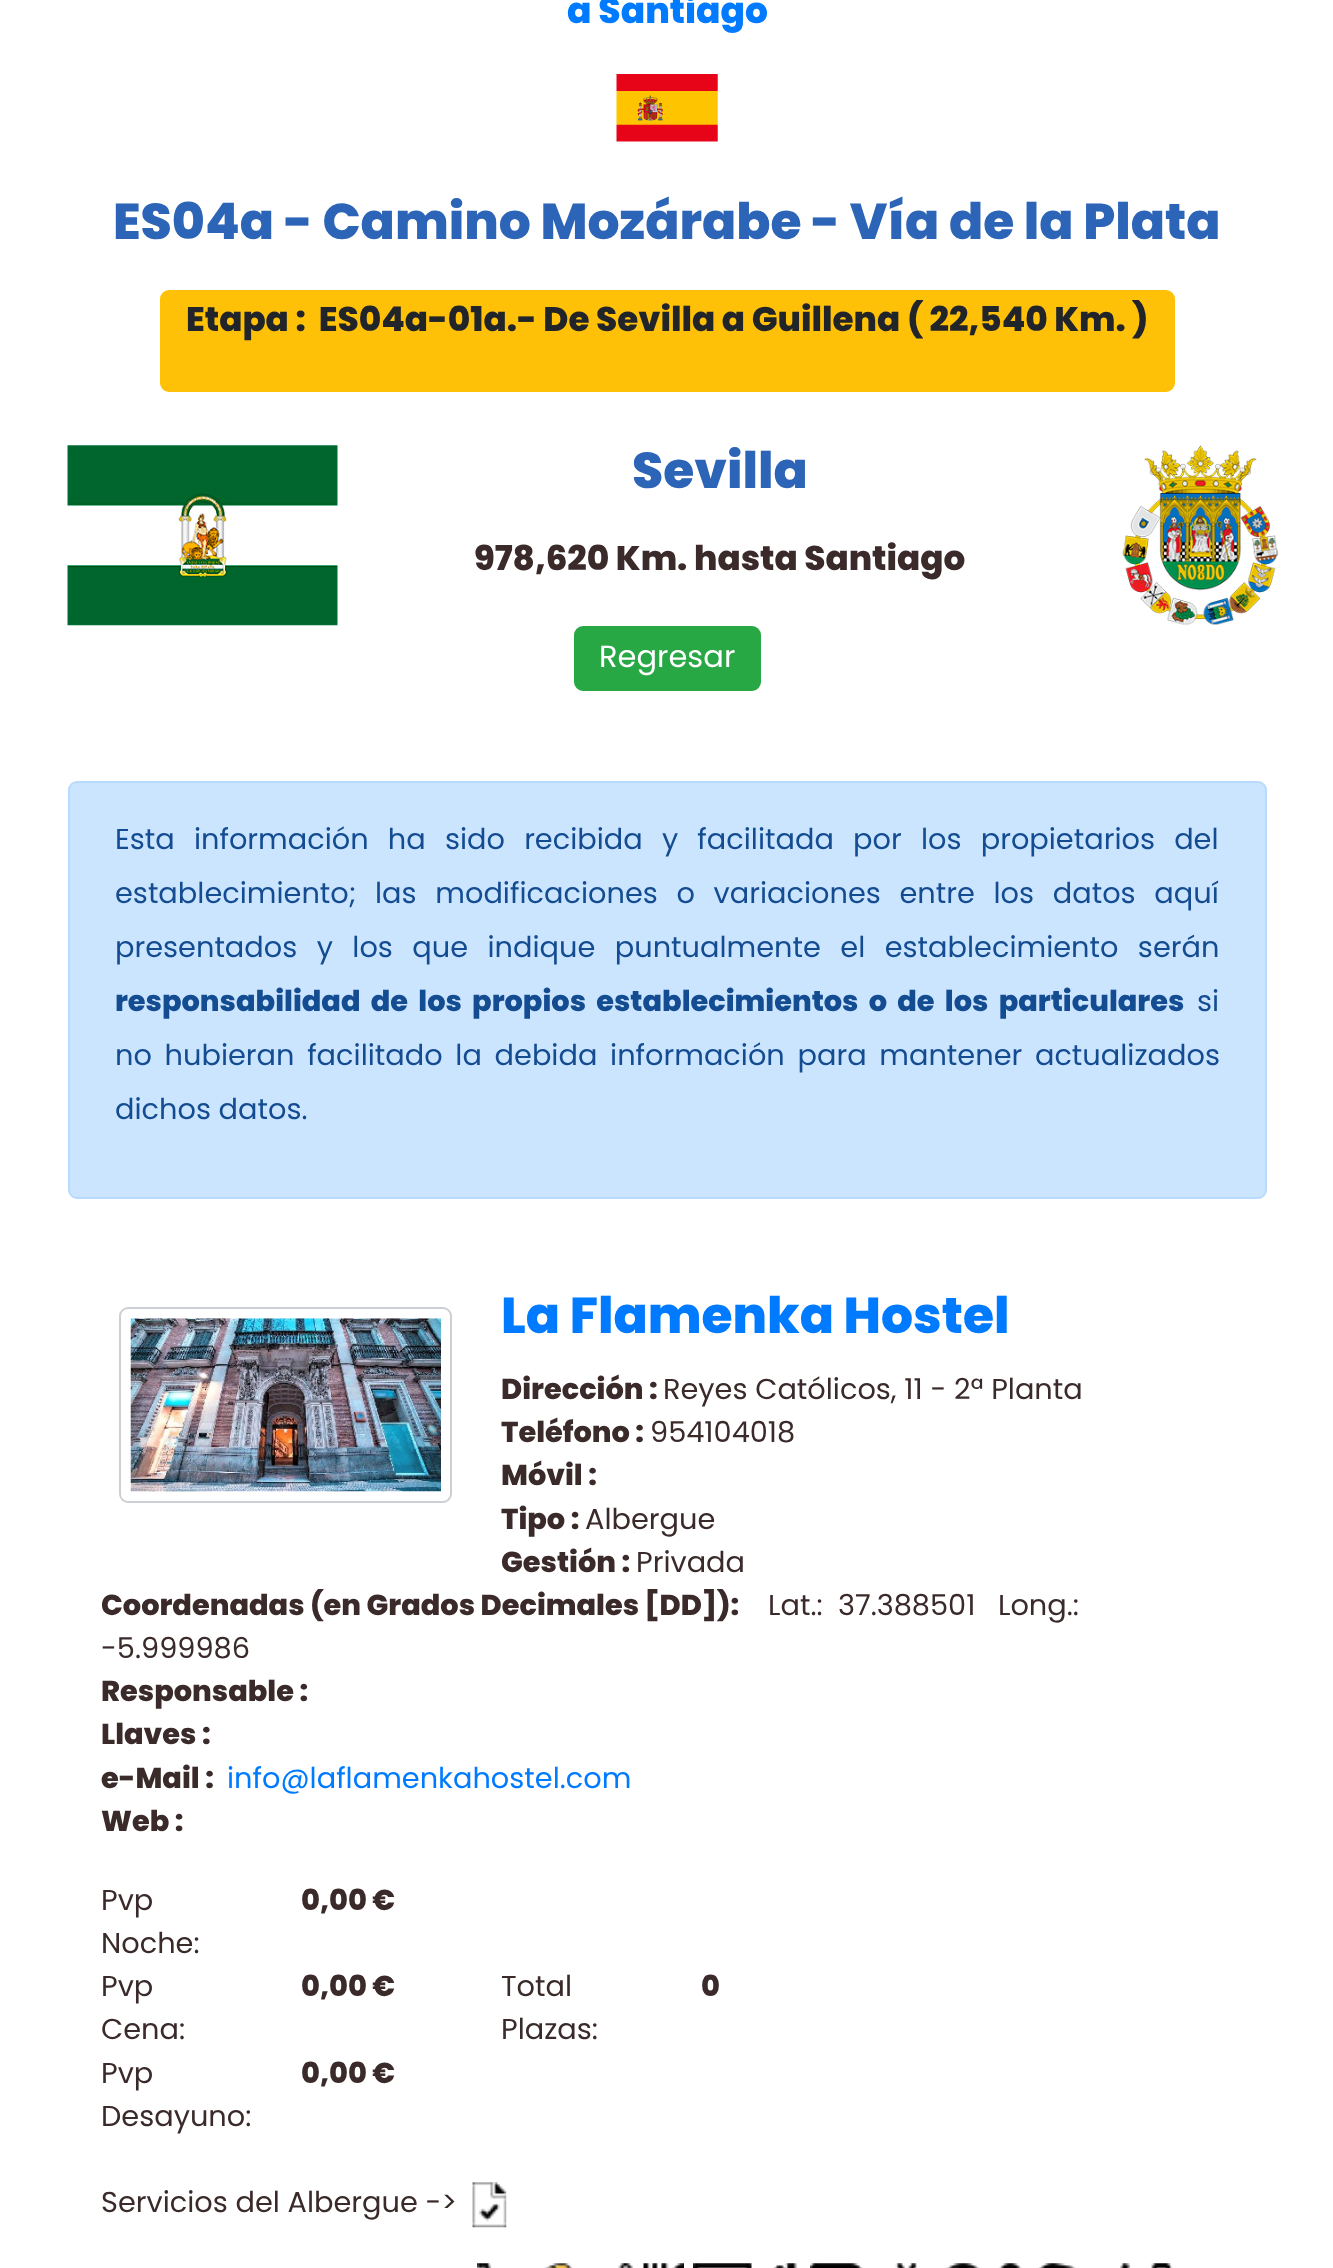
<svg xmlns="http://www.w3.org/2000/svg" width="1333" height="2268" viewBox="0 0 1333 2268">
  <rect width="100%" height="100%" fill="rgb(255,255,255)"/>
  <text x="567" y="23" font-family="Poppins" font-size="36" font-weight="800" fill="rgb(0,123,255)">a Santiago</text>
  <image x="616" y="74" width="102" height="68" href="pic1.png"/>
  <text x="113" y="239" font-family="Poppins" font-size="50.4" font-weight="800" fill="rgb(44,100,183)">ES04a - Camino Mozárabe - Vía de la Plata</text>
  <rect x="161" y="291" width="1013" height="100" rx="8" fill="rgb(255,193,7)" stroke="rgb(255,193,7)" stroke-width="2"/>
  <g font-family="Poppins" font-size="34.2" font-weight="800" fill="rgb(33,37,41)">
    <text x="186" y="331" xml:space="preserve">Etapa :  ES04a-01a.- De Sevilla a Guillena</text>
    <text x="907" y="331">( 22,540 Km. )</text>
  </g>
  <image x="67" y="445" width="271" height="181" href="pic2.png"/>
  <text x="632" y="488" font-family="Poppins" font-size="50.4" font-weight="800" fill="rgb(44,100,183)">Sevilla</text>
  <text x="474" y="570" font-family="Poppins" font-size="34.2" font-weight="800" fill="rgb(58,42,42)">978,620 Km. hasta Santiago</text>
  <image x="1122" y="445" width="156" height="180" href="pic3.png"/>
  <rect x="575" y="627" width="185" height="63" rx="8" fill="rgb(40,167,69)" stroke="rgb(40,167,69)" stroke-width="2"/>
  <text x="599" y="667" font-family="Poppins" font-size="30.5" fill="rgb(255,255,255)">Regresar</text>
  <rect x="69" y="782" width="1197" height="416" rx="8" fill="rgb(204,229,255)" stroke="rgb(184,218,255)" stroke-width="2"/>
  <g font-family="Poppins" font-size="28.8" fill="rgb(20,76,145)">
    <text>
      <tspan x="115" y="849" word-spacing="11.5">Esta información ha sido recibida y facilitada por los propietarios del</tspan>
      <tspan x="115" y="903" word-spacing="11">establecimiento; las modificaciones o variaciones entre los datos aquí</tspan>
      <tspan x="115" y="957" word-spacing="11.75">presentados y los que indique puntualmente el establecimiento serán</tspan>
    </text>
  </g>
  <text x="115" y="1011" word-spacing="4.75" font-family="Poppins" font-size="28.8" font-weight="800" fill="rgb(20,76,145)">responsabilidad de los propios establecimientos o de los particulares</text>
  <g font-family="Poppins" font-size="28.8" fill="rgb(20,76,145)">
    <text x="1197" y="1011">si</text>
    <text>
      <tspan x="115" y="1065" word-spacing="5">no hubieran facilitado la debida información para mantener actualizados</tspan>
      <tspan x="115" y="1119">dichos datos.</tspan>
    </text>
  </g>
  <rect x="120" y="1308" width="331" height="194" rx="8" fill="none" stroke="rgb(204,208,212)" stroke-width="2"/>
  <image x="130" y="1318" width="311" height="174" href="pic4.png"/>
  <text x="501" y="1333" font-family="Poppins" font-size="50.4" font-weight="800" fill="rgb(0,123,255)">La Flamenka Hostel</text>
  <text x="501" y="1399" font-family="Poppins" font-size="28.8" font-weight="800" fill="rgb(58,42,42)">Dirección :</text>
  <text x="663" y="1399" font-family="Poppins" font-size="28.8" fill="rgb(58,42,42)">Reyes Católicos, 11 - 2ª Planta</text>
  <text x="501" y="1442" font-family="Poppins" font-size="28.8" font-weight="800" fill="rgb(58,42,42)">Teléfono :</text>
  <text x="650" y="1442" font-family="Poppins" font-size="28.8" fill="rgb(58,42,42)">954104018</text>
  <g font-family="Poppins" font-size="28.8" font-weight="800" fill="rgb(58,42,42)">
    <text>
      <tspan x="501" y="1485">Móvil :</tspan>
      <tspan x="501" y="1529">Tipo :</tspan>
    </text>
  </g>
  <text x="585" y="1529" font-family="Poppins" font-size="28.8" fill="rgb(58,42,42)">Albergue</text>
  <text x="501" y="1572" font-family="Poppins" font-size="28.8" font-weight="800" fill="rgb(58,42,42)">Gestión :</text>
  <text x="636" y="1572" font-family="Poppins" font-size="28.8" fill="rgb(58,42,42)">Privada</text>
  <text x="101" y="1615" font-family="Poppins" font-size="28.8" font-weight="800" fill="rgb(58,42,42)">Coordenadas (en Grados Decimales [DD]):</text>
  <g font-family="Poppins" font-size="28.8" fill="rgb(58,42,42)">
    <text x="768" y="1615" xml:space="preserve">Lat.:  37.388501</text>
    <text x="998" y="1615">Long.:</text>
    <text x="101" y="1658">-5.999986</text>
  </g>
  <g font-family="Poppins" font-size="28.8" font-weight="800" fill="rgb(58,42,42)">
    <text>
      <tspan x="101" y="1701">Responsable :</tspan>
      <tspan x="101" y="1744">Llaves :</tspan>
      <tspan x="101" y="1788">e-Mail :</tspan>
    </text>
  </g>
  <text x="227" y="1788" font-family="Poppins" font-size="28.8" fill="rgb(0,123,255)">info@laflamenkahostel.com</text>
  <text x="101" y="1831" font-family="Poppins" font-size="28.8" font-weight="800" fill="rgb(58,42,42)">Web :</text>
  <g font-family="Poppins" font-size="28.8" fill="rgb(58,42,42)">
    <text>
      <tspan x="101" y="1910">Pvp</tspan>
      <tspan x="101" y="1953">Noche:</tspan>
    </text>
  </g>
  <text x="301" y="1910" font-family="Poppins" font-size="28.8" font-weight="800" fill="rgb(58,42,42)">0,00 €</text>
  <g font-family="Poppins" font-size="28.8" fill="rgb(58,42,42)">
    <text>
      <tspan x="101" y="1996">Pvp</tspan>
      <tspan x="101" y="2039">Cena:</tspan>
    </text>
  </g>
  <text x="301" y="1996" font-family="Poppins" font-size="28.8" font-weight="800" fill="rgb(58,42,42)">0,00 €</text>
  <g font-family="Poppins" font-size="28.8" fill="rgb(58,42,42)">
    <text>
      <tspan x="501" y="1996">Total</tspan>
      <tspan x="501" y="2039">Plazas:</tspan>
    </text>
  </g>
  <text x="701" y="1996" font-family="Poppins" font-size="28.8" font-weight="800" fill="rgb(58,42,42)">0</text>
  <g font-family="Poppins" font-size="28.8" fill="rgb(58,42,42)">
    <text>
      <tspan x="101" y="2083">Pvp</tspan>
      <tspan x="101" y="2126">Desayuno:</tspan>
    </text>
  </g>
  <text x="301" y="2083" font-family="Poppins" font-size="28.8" font-weight="800" fill="rgb(58,42,42)">0,00 €</text>
  <text x="101" y="2212" font-family="Poppins" font-size="28.8" fill="rgb(58,42,42)">Servicios del Albergue -&gt;</text>
  <image x="472" y="2182" width="35" height="46" href="pic5.png"/>
  <image x="477" y="2263" width="15" height="5" href="pic6.png"/>
  <image x="544" y="2263" width="28" height="5" href="pic7.png"/>
  <image x="618" y="2263" width="15" height="5" href="pic8.png"/>
  <image x="643" y="2263" width="41" height="5" href="pic9.png"/>
  <image x="693" y="2263" width="59" height="5" href="pic10.png"/>
  <image x="773" y="2263" width="25" height="5" href="pic11.png"/>
  <image x="810" y="2263" width="53" height="5" href="pic12.png"/>
  <image x="895" y="2263" width="22" height="5" href="pic13.png"/>
  <image x="946" y="2263" width="34" height="5" href="pic14.png"/>
  <image x="998" y="2263" width="78" height="5" href="pic15.png"/>
  <image x="1120" y="2263" width="11" height="5" href="pic16.png"/>
  <image x="1151" y="2263" width="22" height="5" href="pic17.png"/>
</svg>
